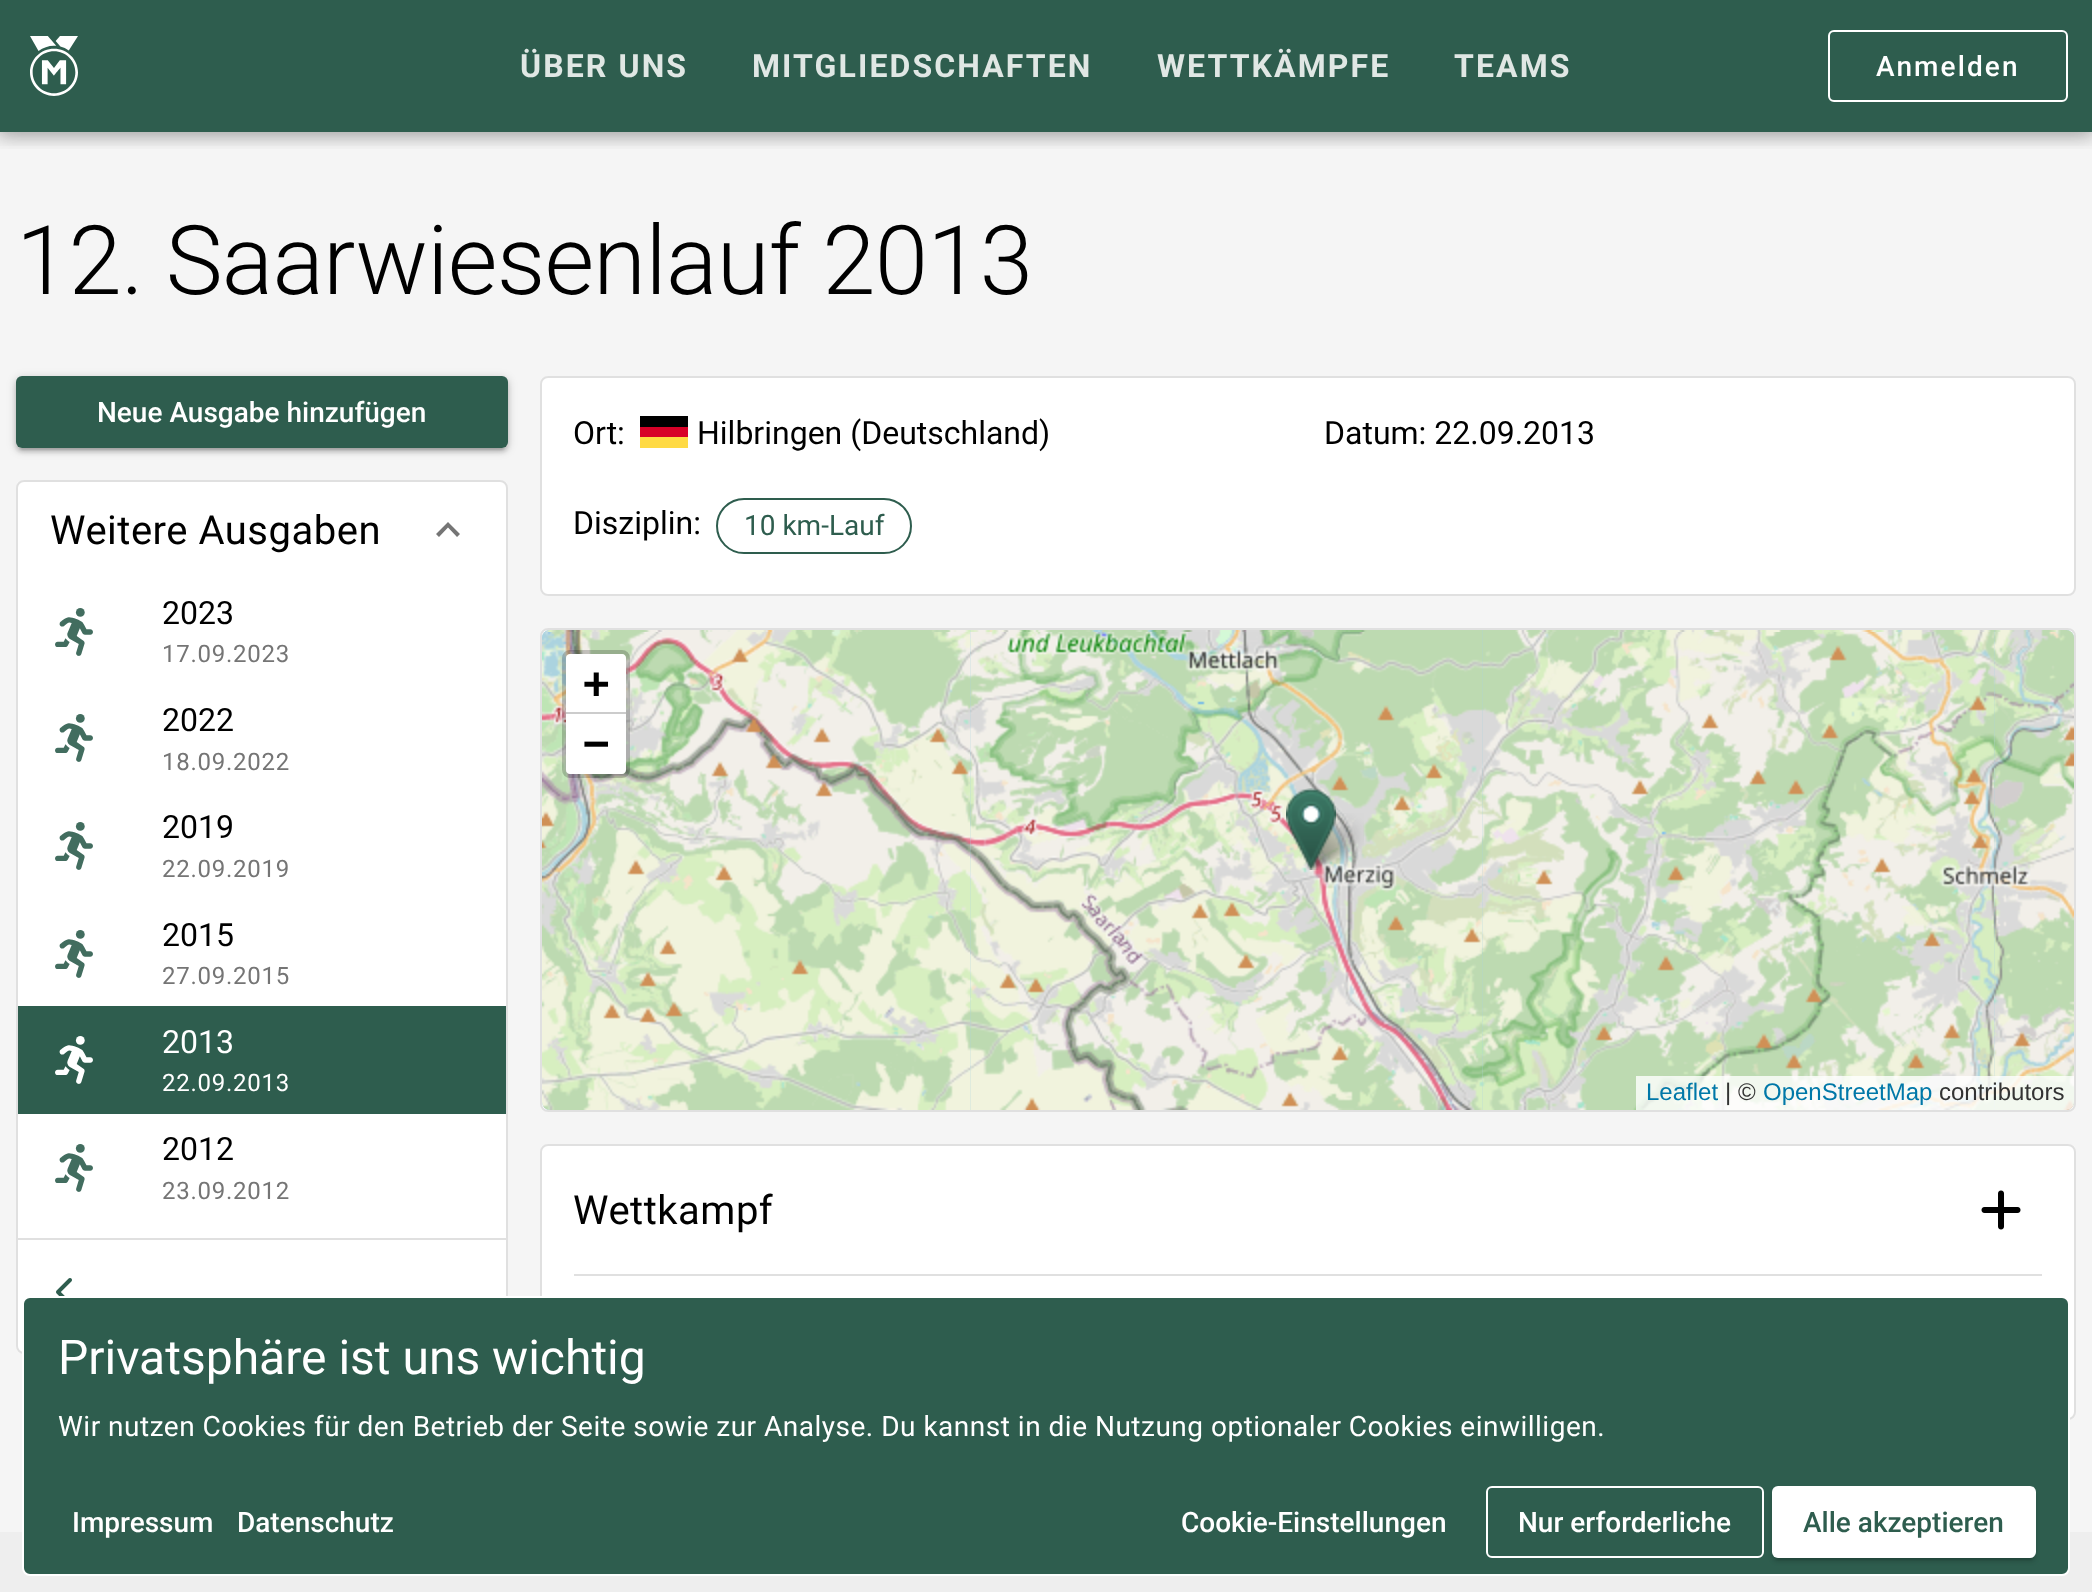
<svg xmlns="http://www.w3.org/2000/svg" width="2092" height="1592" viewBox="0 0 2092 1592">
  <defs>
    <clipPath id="clip1"><rect x="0" y="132" width="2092" height="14"/></clipPath>
    <clipPath id="clip2"><rect x="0" y="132" width="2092" height="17"/></clipPath>
    <clipPath id="clip3"><rect x="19" y="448" width="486" height="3"/></clipPath>
    <clipPath id="clip4"><path d="M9 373H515V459H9ZM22 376H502C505.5 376 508 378.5 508 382V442C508 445.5 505.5 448 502 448H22C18.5 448 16 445.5 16 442V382C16 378.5 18.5 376 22 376Z" clip-rule="evenodd"/></clipPath>
    <clipPath id="clip5"><path d="M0 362H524V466H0ZM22 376H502C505.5 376 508 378.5 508 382V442C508 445.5 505.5 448 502 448H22C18.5 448 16 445.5 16 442V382C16 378.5 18.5 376 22 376Z" clip-rule="evenodd"/></clipPath>
    <clipPath id="clip6"><rect x="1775" y="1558" width="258" height="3"/></clipPath>
    <clipPath id="clip7"><path d="M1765 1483H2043V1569H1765ZM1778 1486H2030C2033.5 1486 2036 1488.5 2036 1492V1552C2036 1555.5 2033.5 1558 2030 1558H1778C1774.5 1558 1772 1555.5 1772 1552V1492C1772 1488.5 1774.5 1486 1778 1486Z" clip-rule="evenodd"/></clipPath>
  </defs>
  <rect width="100%" height="100%" fill="rgb(238,238,238)"/>
  <rect x="0" y="0" width="2092" height="132" fill="rgb(46,93,78)"/>
  <image x="30" y="36" width="48" height="60" href="pic1.png"/>
  <rect x="1829" y="31" width="238" height="70" rx="5" fill="none" stroke="rgb(255,255,255)" stroke-width="2"/>
  <rect x="0" y="132" width="2092" height="1400" fill="rgb(245,245,245)"/>
  <g clip-path="url(#clip1)">
    <rect x="0" y="0" width="2092" height="132" fill="rgba(0,0,0,0.24)" filter="blur(10px)"/>
  </g>
  <g clip-path="url(#clip2)">
    <rect x="-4" y="-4" width="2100" height="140" fill="rgba(0,0,0,0.2)" filter="blur(10px)"/>
  </g>
  <g font-family="Roboto" font-size="32" font-weight="bold" letter-spacing="2.1" fill="rgb(224,231,228)">
    <text x="520" y="77">ÜBER UNS</text>
    <text x="752" y="77">MITGLIEDSCHAFTEN</text>
    <text x="1157" y="77">WETTKÄMPFE</text>
    <text x="1454" y="77">TEAMS</text>
  </g>
  <text x="1876" y="76" font-family="Roboto" font-size="28" font-weight="500" letter-spacing="2.1" fill="rgb(255,255,255)">Anmelden</text>
  <text x="16" y="294" font-family="Roboto" font-size="96" font-weight="300" letter-spacing="-0.8" fill="rgb(0,0,0)">12. Saarwiesenlauf 2013</text>
  <rect x="16" y="376" width="492" height="72" rx="6" fill="rgb(46,93,78)"/>
  <g clip-path="url(#clip3)">
    <rect x="20" y="386" width="484" height="64" rx="2" fill="rgba(0,0,0,0.12)" filter="blur(1px)"/>
  </g>
  <g clip-path="url(#clip4)">
    <rect x="16" y="380" width="492" height="72" rx="6" fill="rgba(0,0,0,0.14)" filter="blur(2px)"/>
  </g>
  <g clip-path="url(#clip5)">
    <rect x="16" y="378" width="492" height="72" rx="6" fill="rgba(0,0,0,0.2)" filter="blur(5px)"/>
  </g>
  <text x="97" y="422" font-family="Roboto" font-size="28" font-weight="500" fill="rgb(255,255,255)">Neue Ausgabe hinzufügen</text>
  <rect x="16" y="480" width="492" height="874" rx="8" fill="rgb(255,255,255)"/>
  <rect x="17" y="481" width="490" height="872" rx="7" fill="none" stroke="rgba(0,0,0,0.12)" stroke-width="2"/>
  <text x="50" y="544" font-family="Roboto" font-size="40" letter-spacing="0.5" fill="rgb(0,0,0)">Weitere Ausgaben</text>
  <path d="M457 537L448 527.5L439 537L436 534L448 522L460 534Z" fill="rgb(117,117,117)"/>
  <image x="55" y="608" width="38" height="48" href="pic2.png"/>
  <text x="162" y="624" font-family="Roboto" font-size="32" fill="rgb(0,0,0)">2023</text>
  <text x="162" y="662" font-family="Roboto" font-size="24" letter-spacing="0.75" fill="rgb(117,117,117)">17.09.2023</text>
  <image x="55" y="714" width="38" height="48" href="pic3.png"/>
  <text x="162" y="731" font-family="Roboto" font-size="32" fill="rgb(0,0,0)">2022</text>
  <text x="162" y="770" font-family="Roboto" font-size="24" letter-spacing="0.75" fill="rgb(117,117,117)">18.09.2022</text>
  <image x="55" y="822" width="38" height="48" href="pic3.png"/>
  <text x="162" y="838" font-family="Roboto" font-size="32" fill="rgb(0,0,0)">2019</text>
  <text x="162" y="877" font-family="Roboto" font-size="24" letter-spacing="0.75" fill="rgb(117,117,117)">22.09.2019</text>
  <image x="55" y="930" width="38" height="48" href="pic3.png"/>
  <text x="162" y="946" font-family="Roboto" font-size="32" fill="rgb(0,0,0)">2015</text>
  <text x="162" y="984" font-family="Roboto" font-size="24" letter-spacing="0.75" fill="rgb(117,117,117)">27.09.2015</text>
  <rect x="18" y="1006" width="488" height="108" fill="rgb(46,93,78)"/>
  <image x="55" y="1036" width="38" height="48" href="pic4.png"/>
  <text x="162" y="1053" font-family="Roboto" font-size="32" fill="rgb(255,255,255)">2013</text>
  <text x="162" y="1091" font-family="Roboto" font-size="24" letter-spacing="0.75" fill="rgb(255,255,255)">22.09.2013</text>
  <image x="55" y="1144" width="38" height="48" href="pic5.png"/>
  <text x="162" y="1160" font-family="Roboto" font-size="32" fill="rgb(0,0,0)">2012</text>
  <text x="162" y="1199" font-family="Roboto" font-size="24" letter-spacing="0.75" fill="rgb(117,117,117)">23.09.2012</text>
  <rect x="18" y="1238" width="488" height="2" fill="rgb(224,224,224)"/>
  <image x="56" y="1278" width="16" height="18" href="pic6.png"/>
  <rect x="540" y="376" width="1536" height="220" rx="8" fill="rgb(255,255,255)"/>
  <rect x="541" y="377" width="1534" height="218" rx="7" fill="none" stroke="rgba(0,0,0,0.12)" stroke-width="2"/>
  <text x="573" y="444" font-family="Roboto" font-size="32" fill="rgb(0,0,0)">Ort:</text>
  <rect x="640" y="416" width="48" height="11" fill="rgb(0,0,0)"/>
  <rect x="640" y="427" width="48" height="10" fill="rgb(216,0,39)"/>
  <rect x="640" y="437" width="48" height="11" fill="rgb(255,218,68)"/>
  <g font-family="Roboto" font-size="32" fill="rgb(0,0,0)">
    <text x="697" y="444">Hilbringen (Deutschland)</text>
    <text x="1324" y="444">Datum: 22.09.2013</text>
    <text x="573" y="534">Disziplin:</text>
  </g>
  <rect x="717" y="499" width="194" height="54" rx="27" fill="none" stroke="rgb(46,93,78)" stroke-width="2"/>
  <text x="744" y="535" font-family="Roboto" font-size="28" fill="rgb(46,93,78)">10 km-Lauf</text>
  <rect x="540" y="628" width="1536" height="484" rx="8" fill="rgb(255,255,255)"/>
  <rect x="541" y="629" width="1534" height="482" rx="7" fill="none" stroke="rgba(0,0,0,0.12)" stroke-width="2"/>
  <rect x="542" y="630" width="1532" height="480" rx="8" fill="rgb(170,211,223)"/>
  <image x="545" y="630" width="425" height="2" href="pic7.png"/>
  <image x="970" y="630" width="512" height="2" href="pic8.png"/>
  <image x="1482" y="630" width="512" height="2" href="pic9.png"/>
  <image x="1994" y="630" width="77" height="2" href="pic10.png"/>
  <image x="542" y="632" width="428" height="478" href="pic11.png"/>
  <image x="970" y="632" width="512" height="478" href="pic12.png"/>
  <image x="1481" y="632" width="513" height="478" href="pic13.png"/>
  <image x="1993" y="632" width="81" height="478" href="pic14.png"/>
  <image x="1304" y="813" width="60" height="57" href="pic16.png"/>
  <image x="1286" y="788" width="50" height="82" href="pic15.png"/>
  <rect x="564" y="652" width="64" height="124" rx="6" fill="none" stroke="rgba(0,0,0,0.2)" stroke-width="4"/>
  <path d="M570 654H622C624 654 626 656 626 658V714H566V658C566 656 568 654 570 654Z" fill="rgb(255,255,255)"/>
  <rect x="566" y="712" width="60" height="2" fill="rgb(204,204,204)"/>
  <text x="583" y="698" font-family="DejaVu Sans Mono" font-size="44" font-weight="bold" fill="rgb(0,0,0)">+</text>
  <path d="M566 714H626V770C626 772 624 774 622 774H570C568 774 566 772 566 770Z" fill="rgb(255,255,255)"/>
  <text x="583" y="758" font-family="DejaVu Sans Mono" font-size="44" font-weight="bold" fill="rgb(0,0,0)">−</text>
  <path d="M1636 1076H2074V1102C2074 1106.5 2070.5 1110 2066 1110H1636Z" fill="rgba(255,255,255,0.8)"/>
  <text x="1646" y="1100" font-family="Liberation Sans" font-size="24" fill="rgb(0,120,168)">Leaflet</text>
  <text x="1725" y="1100" font-family="Liberation Sans" font-size="24" fill="rgb(51,51,51)">| ©</text>
  <text x="1763" y="1100" font-family="Liberation Sans" font-size="24" fill="rgb(0,120,168)">OpenStreetMap</text>
  <text x="1939" y="1100" font-family="Liberation Sans" font-size="24" fill="rgb(51,51,51)">contributors</text>
  <rect x="540" y="1144" width="1536" height="276" rx="8" fill="rgb(255,255,255)"/>
  <rect x="541" y="1145" width="1534" height="274" rx="7" fill="none" stroke="rgba(0,0,0,0.12)" stroke-width="2"/>
  <text x="573" y="1224" font-family="Roboto" font-size="40" letter-spacing="0.5" fill="rgb(0,0,0)">Wettkampf</text>
  <image x="1981" y="1190" width="40" height="40" href="pic17.png"/>
  <rect x="574" y="1274" width="1468" height="2" fill="rgb(224,224,224)"/>
  <rect x="23" y="1297" width="2046" height="278" rx="7" fill="rgb(46,93,78)" stroke="rgb(255,255,255)" stroke-width="2"/>
  <text x="58" y="1374" font-family="Roboto" font-size="48" fill="rgb(255,255,255)">Privatsphäre ist uns wichtig</text>
  <text x="58" y="1436" font-family="Roboto" font-size="28" letter-spacing="0.5" fill="rgb(255,255,255)">Wir nutzen Cookies für den Betrieb der Seite sowie zur Analyse. Du kannst in die Nutzung optionaler Cookies einwilligen.</text>
  <g font-family="Roboto" font-size="28" font-weight="500" fill="rgb(255,255,255)">
    <text x="72" y="1532">Impressum</text>
    <text x="237" y="1532">Datenschutz</text>
    <text x="1181" y="1532">Cookie-Einstellungen</text>
  </g>
  <rect x="1487" y="1487" width="276" height="70" rx="5" fill="none" stroke="rgb(255,255,255)" stroke-width="2"/>
  <text x="1518" y="1532" font-family="Roboto" font-size="28" font-weight="500" fill="rgb(255,255,255)">Nur erforderliche</text>
  <rect x="1772" y="1486" width="264" height="72" rx="6" fill="rgb(255,255,255)"/>
  <g clip-path="url(#clip6)">
    <rect x="1776" y="1496" width="256" height="64" rx="2" fill="rgba(0,0,0,0.12)" filter="blur(1px)"/>
  </g>
  <g clip-path="url(#clip7)">
    <rect x="1772" y="1490" width="264" height="72" rx="6" fill="rgba(0,0,0,0.14)" filter="blur(2px)"/>
  </g>
  <text x="1803" y="1532" font-family="Roboto" font-size="28" font-weight="500" fill="rgb(46,93,78)">Alle akzeptieren</text>
</svg>
